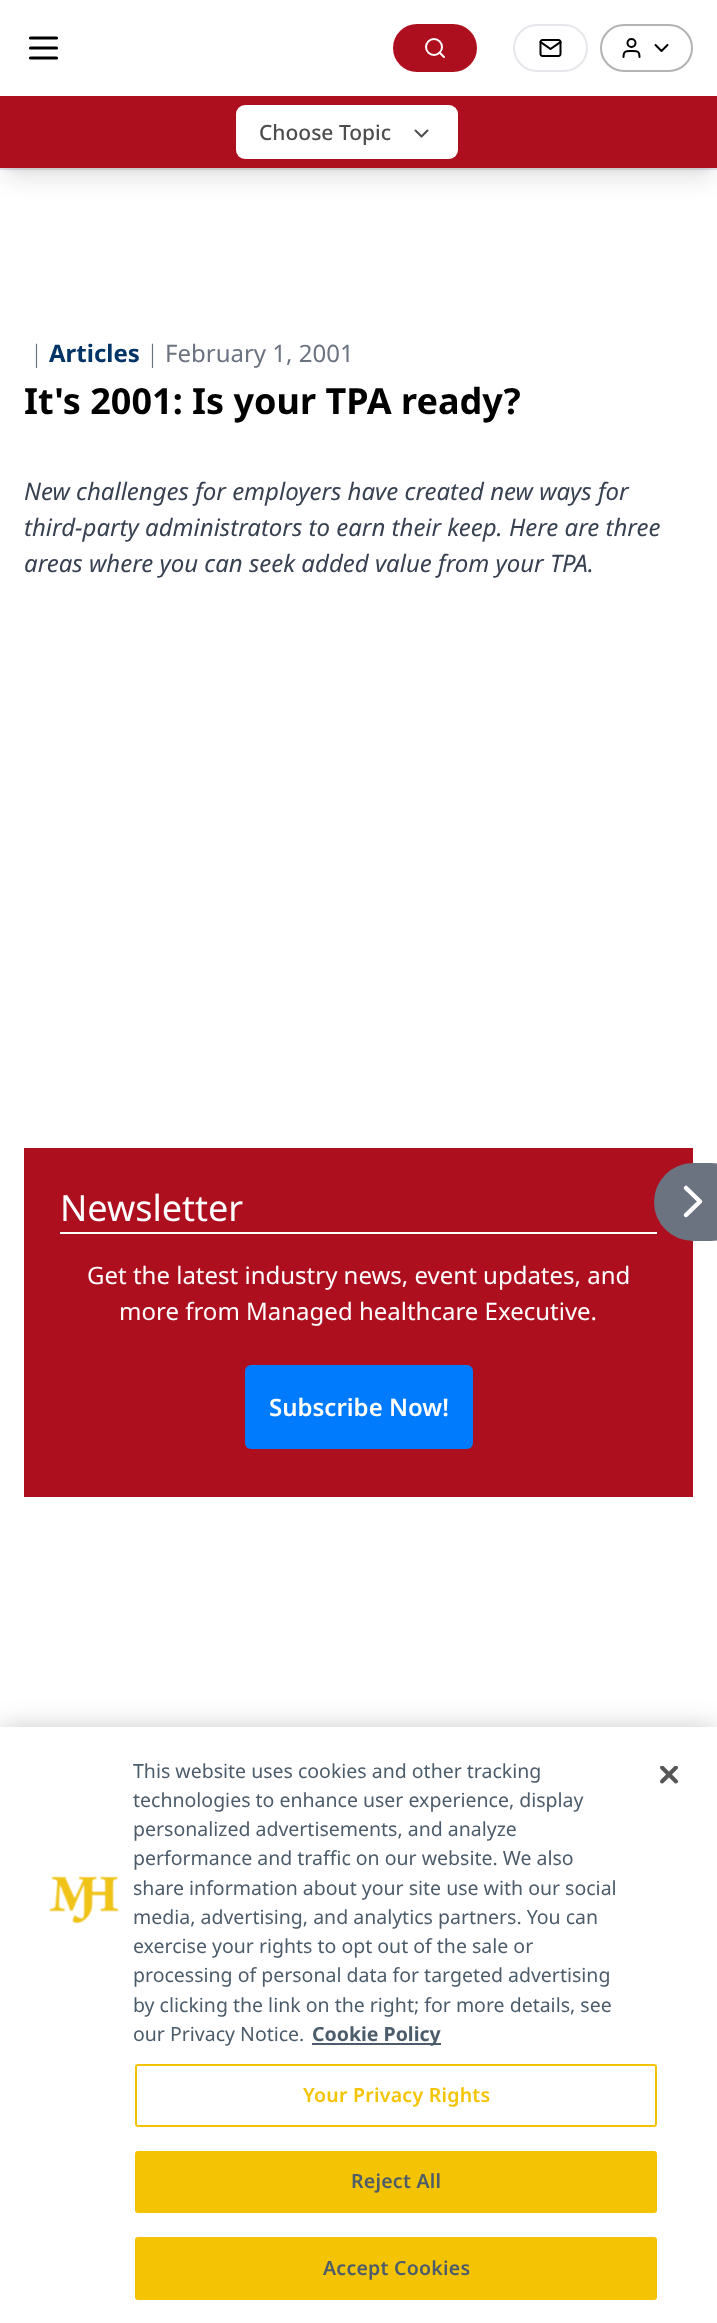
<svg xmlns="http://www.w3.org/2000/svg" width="717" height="2323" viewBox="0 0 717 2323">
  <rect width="100%" height="100%" fill="rgb(255,255,255)"/>
  <rect x="0" y="168" width="717" height="2" fill="rgb(229,231,235)"/>
  <path d="M30.5 38H56.5M30.5 48H56.5M30.5 58H56.5" fill="none" stroke="rgb(0,0,0)" stroke-width="3.2" stroke-linecap="round" stroke-linejoin="round"/>
  <rect x="393" y="24" width="84" height="48" rx="24" fill="rgb(174,15,31)"/>
  <circle cx="434" cy="47" r="8" fill="none" stroke="rgb(255,255,255)" stroke-width="2"/>
  <path d="M444 57L439.5 52.5" fill="none" stroke="rgb(255,255,255)" stroke-width="2" stroke-linecap="round" stroke-linejoin="round"/>
  <rect x="514" y="25" width="73" height="46" rx="23" fill="none" stroke="rgb(229,231,235)" stroke-width="2"/>
  <image x="539" y="39" width="23" height="18" href="pic1.png"/>
  <rect x="601" y="25" width="91" height="46" rx="23" fill="none" stroke="rgb(179,179,179)" stroke-width="2"/>
  <path d="M655.5 45L661.5 51L667.5 45M639.5 57C639.5 50.5 637 51 631.5 51C626 51 623.5 50.5 623.5 57" fill="none" stroke="rgb(0,0,0)" stroke-width="2" stroke-linecap="round" stroke-linejoin="round"/>
  <circle cx="631.5" cy="43" r="4" fill="none" stroke="rgb(0,0,0)" stroke-width="2"/>
  <rect x="6" y="108" width="705" height="60" fill="rgba(0,0,0,0.1)" filter="blur(4.5px)"/>
  <rect x="5" y="116" width="708" height="63" fill="rgba(0,0,0,0.1)" filter="blur(11px)"/>
  <rect x="0" y="96" width="717" height="72" fill="rgb(174,15,31)"/>
  <rect x="236" y="105" width="222" height="54" rx="9" fill="rgb(255,255,255)"/>
  <text x="259" y="140" font-family="Noto Sans" font-size="21" font-weight="500" fill="rgb(77,77,77)">Choose Topic</text>
  <path d="M415.5 130.5L421.5 136.5L427.5 130.5" fill="none" stroke="rgb(77,77,77)" stroke-width="2" stroke-linecap="round" stroke-linejoin="round"/>
  <text x="30" y="362" font-family="Noto Sans" font-size="24" font-weight="300" fill="rgb(107,114,128)">|</text>
  <text x="49" y="362" font-family="Noto Sans" font-size="24" font-weight="bold" fill="rgb(0,51,102)">Articles</text>
  <text x="146" y="362" font-family="Noto Sans" font-size="24" font-weight="300" fill="rgb(107,114,128)">|</text>
  <text x="165" y="362" font-family="Noto Sans" font-size="24" fill="rgb(107,114,128)">February 1, 2001</text>
  <text x="24" y="414" font-family="Noto Sans" font-size="36" font-weight="bold" fill="rgb(0,0,0)">It's 2001: Is your TPA ready?</text>
  <g font-family="Noto Sans" font-size="24" font-style="italic" fill="rgb(55,65,81)">
    <text>
      <tspan x="24" y="500">New challenges for employers have created new ways for</tspan>
      <tspan x="24" y="536">third-party administrators to earn their keep. Here are three</tspan>
      <tspan x="24" y="572">areas where you can seek added value from your TPA.</tspan>
    </text>
  </g>
  <rect x="24" y="1148" width="669" height="349" fill="rgb(174,15,31)"/>
  <rect x="60" y="1232" width="597" height="2" fill="rgb(255,255,255)"/>
  <text x="60" y="1221" font-family="Noto Sans" font-size="36" fill="rgb(255,255,255)">Newsletter</text>
  <g font-family="Noto Sans" font-size="24" fill="rgb(255,255,255)">
    <text x="87" y="1284">Get the latest industry news, event updates, and</text>
    <text x="119" y="1320">more from Managed healthcare Executive.</text>
  </g>
  <rect x="245" y="1365" width="228" height="84" rx="6" fill="rgb(0,123,253)"/>
  <text x="269" y="1416" font-family="Noto Sans" font-size="24" font-weight="600" fill="rgb(255,255,255)">Subscribe Now!</text>
  <rect x="654" y="1163" width="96" height="78" rx="39" fill="rgb(107,114,128)"/>
  <path d="M686 1188L700 1201.5L686 1215" fill="none" stroke="rgb(255,255,255)" stroke-width="4.5" stroke-linecap="round" stroke-linejoin="round"/>
  <rect x="0" y="1727" width="717" height="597" fill="rgba(0,0,0,0.2)" filter="blur(13.5px)"/>
  <rect x="0" y="1727" width="717" height="596" fill="rgb(255,255,255)"/>
  <image x="49" y="1876" width="70" height="48" href="pic2.png"/>
  <g font-family="Noto Sans" font-size="19.5" fill="rgb(76,92,107)">
    <text>
      <tspan x="133" y="1778">This website uses cookies and other tracking</tspan>
      <tspan x="133" y="1807">technologies to enhance user experience, display</tspan>
      <tspan x="133" y="1836">personalized advertisements, and analyze</tspan>
      <tspan x="133" y="1865">performance and traffic on our website. We also</tspan>
      <tspan x="133" y="1895">share information about your site use with our social</tspan>
      <tspan x="133" y="1924">media, advertising, and analytics partners. You can</tspan>
      <tspan x="133" y="1953">exercise your rights to opt out of the sale or</tspan>
      <tspan x="133" y="1982">processing of personal data for targeted advertising</tspan>
      <tspan x="133" y="2012">by clicking the link on the right; for more details, see</tspan>
      <tspan x="133" y="2041">our Privacy Notice.</tspan>
    </text>
  </g>
  <rect x="312" y="2043" width="129" height="2" fill="rgb(76,92,107)"/>
  <text x="312" y="2041" font-family="Noto Sans" font-size="19.5" font-weight="bold" fill="rgb(76,92,107)">Cookie Policy</text>
  <rect x="136" y="2065" width="520" height="61" rx="2" fill="none" stroke="rgb(244,196,4)" stroke-width="2"/>
  <text x="303" y="2102" font-family="Noto Sans" font-size="19.5" font-weight="600" letter-spacing="0.25" fill="rgb(244,196,4)">Your Privacy Rights</text>
  <rect x="136" y="2152" width="520" height="60" rx="2" fill="rgb(244,196,4)" stroke="rgb(244,196,4)" stroke-width="2"/>
  <text x="351" y="2188" font-family="Noto Sans" font-size="19.5" font-weight="600" letter-spacing="0.25" fill="rgb(76,92,107)">Reject All</text>
  <rect x="136" y="2238" width="520" height="61" rx="2" fill="rgb(244,196,4)" stroke="rgb(244,196,4)" stroke-width="2"/>
  <text x="323" y="2275" font-family="Noto Sans" font-size="19.5" font-weight="600" letter-spacing="0.25" fill="rgb(76,92,107)">Accept Cookies</text>
  <image x="660" y="1766" width="18" height="18" href="pic3.png"/>
</svg>
